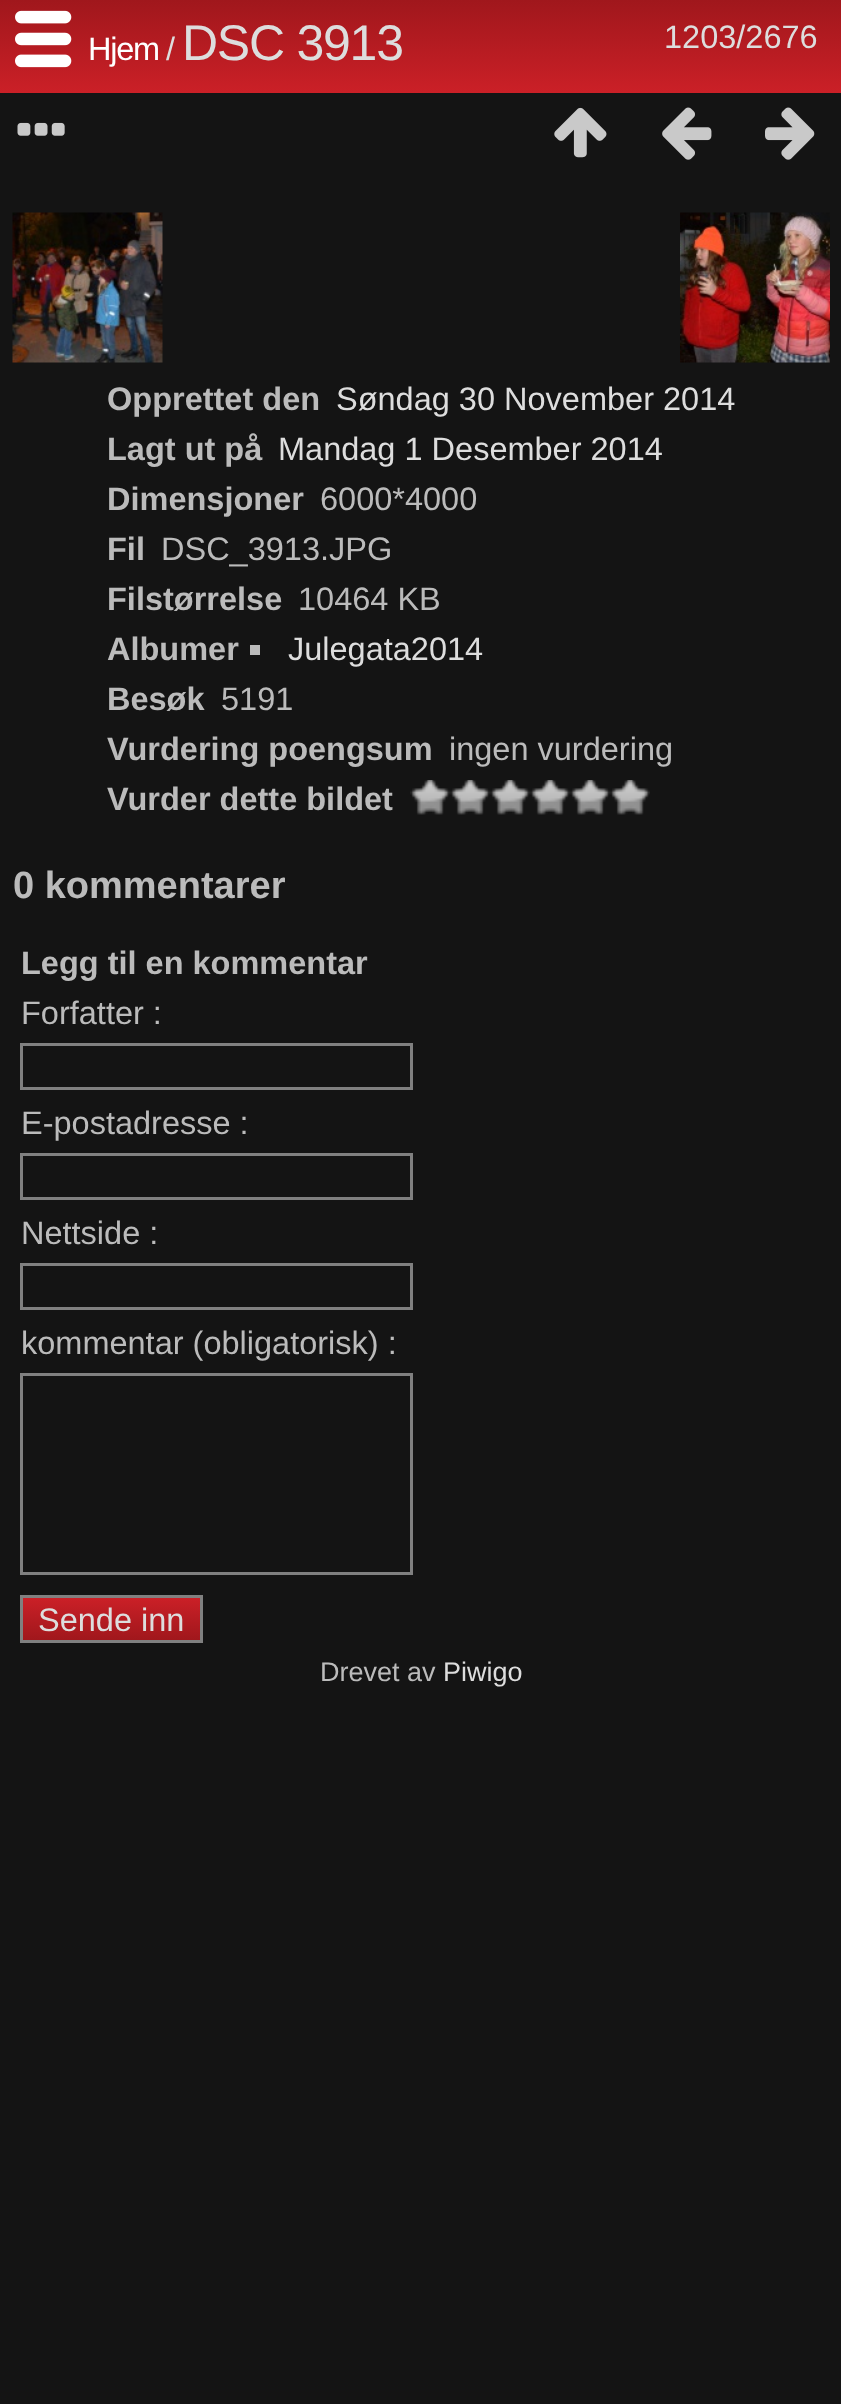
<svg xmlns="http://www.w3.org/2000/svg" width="841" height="2404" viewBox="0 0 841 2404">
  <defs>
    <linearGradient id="g1" gradientUnits="userSpaceOnUse" x1="421" y1="0" x2="421" y2="93"><stop offset="0" stop-color="rgb(160,23,28)"/><stop offset="1" stop-color="rgb(203,32,39)"/></linearGradient>
    <linearGradient id="g2" gradientUnits="userSpaceOnUse" x1="111" y1="1598" x2="111" y2="1640"><stop offset="0" stop-color="rgb(203,32,39)"/><stop offset="1" stop-color="rgb(160,23,28)"/></linearGradient>
  </defs>
  <rect width="100%" height="100%" fill="rgb(20,20,20)"/>
  <rect x="0" y="0" width="841" height="93" fill="url(#g1)"/>
  <image x="15" y="10" width="57" height="58" href="pic1.png"/>
  <text x="88" y="60" font-family="Liberation Sans" font-size="32.5" letter-spacing="-1.25" fill="rgb(255,255,255)">Hjem</text>
  <text x="166" y="60" font-family="Liberation Sans" font-size="32.5" letter-spacing="-1.25" fill="rgb(221,221,221)">/</text>
  <text x="182" y="60" font-family="Liberation Sans" font-size="50" letter-spacing="-1.25" fill="rgb(221,221,221)">DSC 3913</text>
  <text x="664" y="48" font-family="Liberation Sans" font-size="32.5" fill="rgb(221,221,221)">1203/2676</text>
  <image x="17" y="122" width="48" height="14" href="pic2.png"/>
  <image x="554" y="107" width="53" height="51" href="pic3.png"/>
  <image x="662" y="107" width="50" height="53" href="pic4.png"/>
  <image x="765" y="107" width="50" height="53" href="pic5.png"/>
  <image x="12" y="212" width="151" height="151" href="pic6.png"/>
  <image x="680" y="212" width="150" height="151" href="pic7.png"/>
  <text x="107" y="410" font-family="Liberation Sans" font-size="32.5" font-weight="bold" fill="rgb(187,187,187)">Opprettet den</text>
  <text x="336" y="410" font-family="Liberation Sans" font-size="32.5" fill="rgb(221,221,221)">Søndag 30 November 2014</text>
  <text x="107" y="460" font-family="Liberation Sans" font-size="32.5" font-weight="bold" fill="rgb(187,187,187)">Lagt ut på</text>
  <text x="278" y="460" font-family="Liberation Sans" font-size="32.5" fill="rgb(221,221,221)">Mandag 1 Desember 2014</text>
  <text x="107" y="510" font-family="Liberation Sans" font-size="32.5" font-weight="bold" fill="rgb(187,187,187)">Dimensjoner</text>
  <text x="320" y="510" font-family="Liberation Sans" font-size="32.5" fill="rgb(187,187,187)">6000*4000</text>
  <text x="107" y="560" font-family="Liberation Sans" font-size="32.5" font-weight="bold" fill="rgb(187,187,187)">Fil</text>
  <text x="161" y="560" font-family="Liberation Sans" font-size="32.5" fill="rgb(187,187,187)">DSC_3913.JPG</text>
  <text x="107" y="610" font-family="Liberation Sans" font-size="32.5" font-weight="bold" fill="rgb(187,187,187)">Filstørrelse</text>
  <text x="298" y="610" font-family="Liberation Sans" font-size="32.5" fill="rgb(187,187,187)">10464 KB</text>
  <text x="107" y="660" font-family="Liberation Sans" font-size="32.5" font-weight="bold" fill="rgb(187,187,187)">Albumer</text>
  <rect x="250" y="645" width="10" height="10" fill="rgb(187,187,187)"/>
  <text x="288" y="660" font-family="Liberation Sans" font-size="32.5" fill="rgb(221,221,221)">Julegata2014</text>
  <text x="107" y="710" font-family="Liberation Sans" font-size="32.5" font-weight="bold" fill="rgb(187,187,187)">Besøk</text>
  <text x="221" y="710" font-family="Liberation Sans" font-size="32.5" fill="rgb(187,187,187)">5191</text>
  <text x="107" y="760" font-family="Liberation Sans" font-size="32.5" font-weight="bold" fill="rgb(187,187,187)">Vurdering poengsum</text>
  <text x="449" y="760" font-family="Liberation Sans" font-size="32.5" fill="rgb(187,187,187)">ingen vurdering</text>
  <text x="107" y="810" font-family="Liberation Sans" font-size="32.5" font-weight="bold" fill="rgb(187,187,187)">Vurder dette bildet</text>
  <image x="410" y="780" width="40" height="35" href="pic8.png"/>
  <image x="450" y="780" width="40" height="35" href="pic9.png"/>
  <image x="490" y="780" width="40" height="35" href="pic10.png"/>
  <image x="530" y="780" width="40" height="35" href="pic11.png"/>
  <image x="570" y="780" width="40" height="35" href="pic9.png"/>
  <image x="610" y="780" width="40" height="35" href="pic8.png"/>
  <text x="13" y="898" font-family="Liberation Sans" font-size="38" font-weight="bold" fill="rgb(187,187,187)">0 kommentarer</text>
  <text x="21" y="974" font-family="Liberation Sans" font-size="32.5" font-weight="bold" fill="rgb(187,187,187)">Legg til en kommentar</text>
  <text x="21" y="1024" font-family="Liberation Sans" font-size="32.5" fill="rgb(187,187,187)">Forfatter :</text>
  <rect x="21.5" y="1044.5" width="390" height="44" fill="none" stroke="rgb(128,128,128)" stroke-width="3"/>
  <text x="21" y="1134" font-family="Liberation Sans" font-size="32.5" fill="rgb(187,187,187)">E-postadresse :</text>
  <rect x="21.5" y="1154.5" width="390" height="44" fill="none" stroke="rgb(128,128,128)" stroke-width="3"/>
  <text x="21" y="1244" font-family="Liberation Sans" font-size="32.5" fill="rgb(187,187,187)">Nettside :</text>
  <rect x="21.5" y="1264.5" width="390" height="44" fill="none" stroke="rgb(128,128,128)" stroke-width="3"/>
  <text x="21" y="1354" font-family="Liberation Sans" font-size="32.5" fill="rgb(187,187,187)">kommentar (obligatorisk) :</text>
  <rect x="21.5" y="1374.5" width="390" height="199" fill="none" stroke="rgb(128,128,128)" stroke-width="3"/>
  <rect x="23" y="1598" width="177" height="42" fill="url(#g2)"/>
  <rect x="21.5" y="1596.5" width="180" height="45" fill="none" stroke="rgb(128,128,128)" stroke-width="3"/>
  <text x="38" y="1631" font-family="Liberation Sans" font-size="32.5" fill="rgb(221,221,221)">Sende inn</text>
  <text x="320" y="1681" font-family="Liberation Sans" font-size="27" fill="rgb(187,187,187)">Drevet av</text>
  <text x="443" y="1681" font-family="Liberation Sans" font-size="27" fill="rgb(221,221,221)">Piwigo</text>
</svg>
